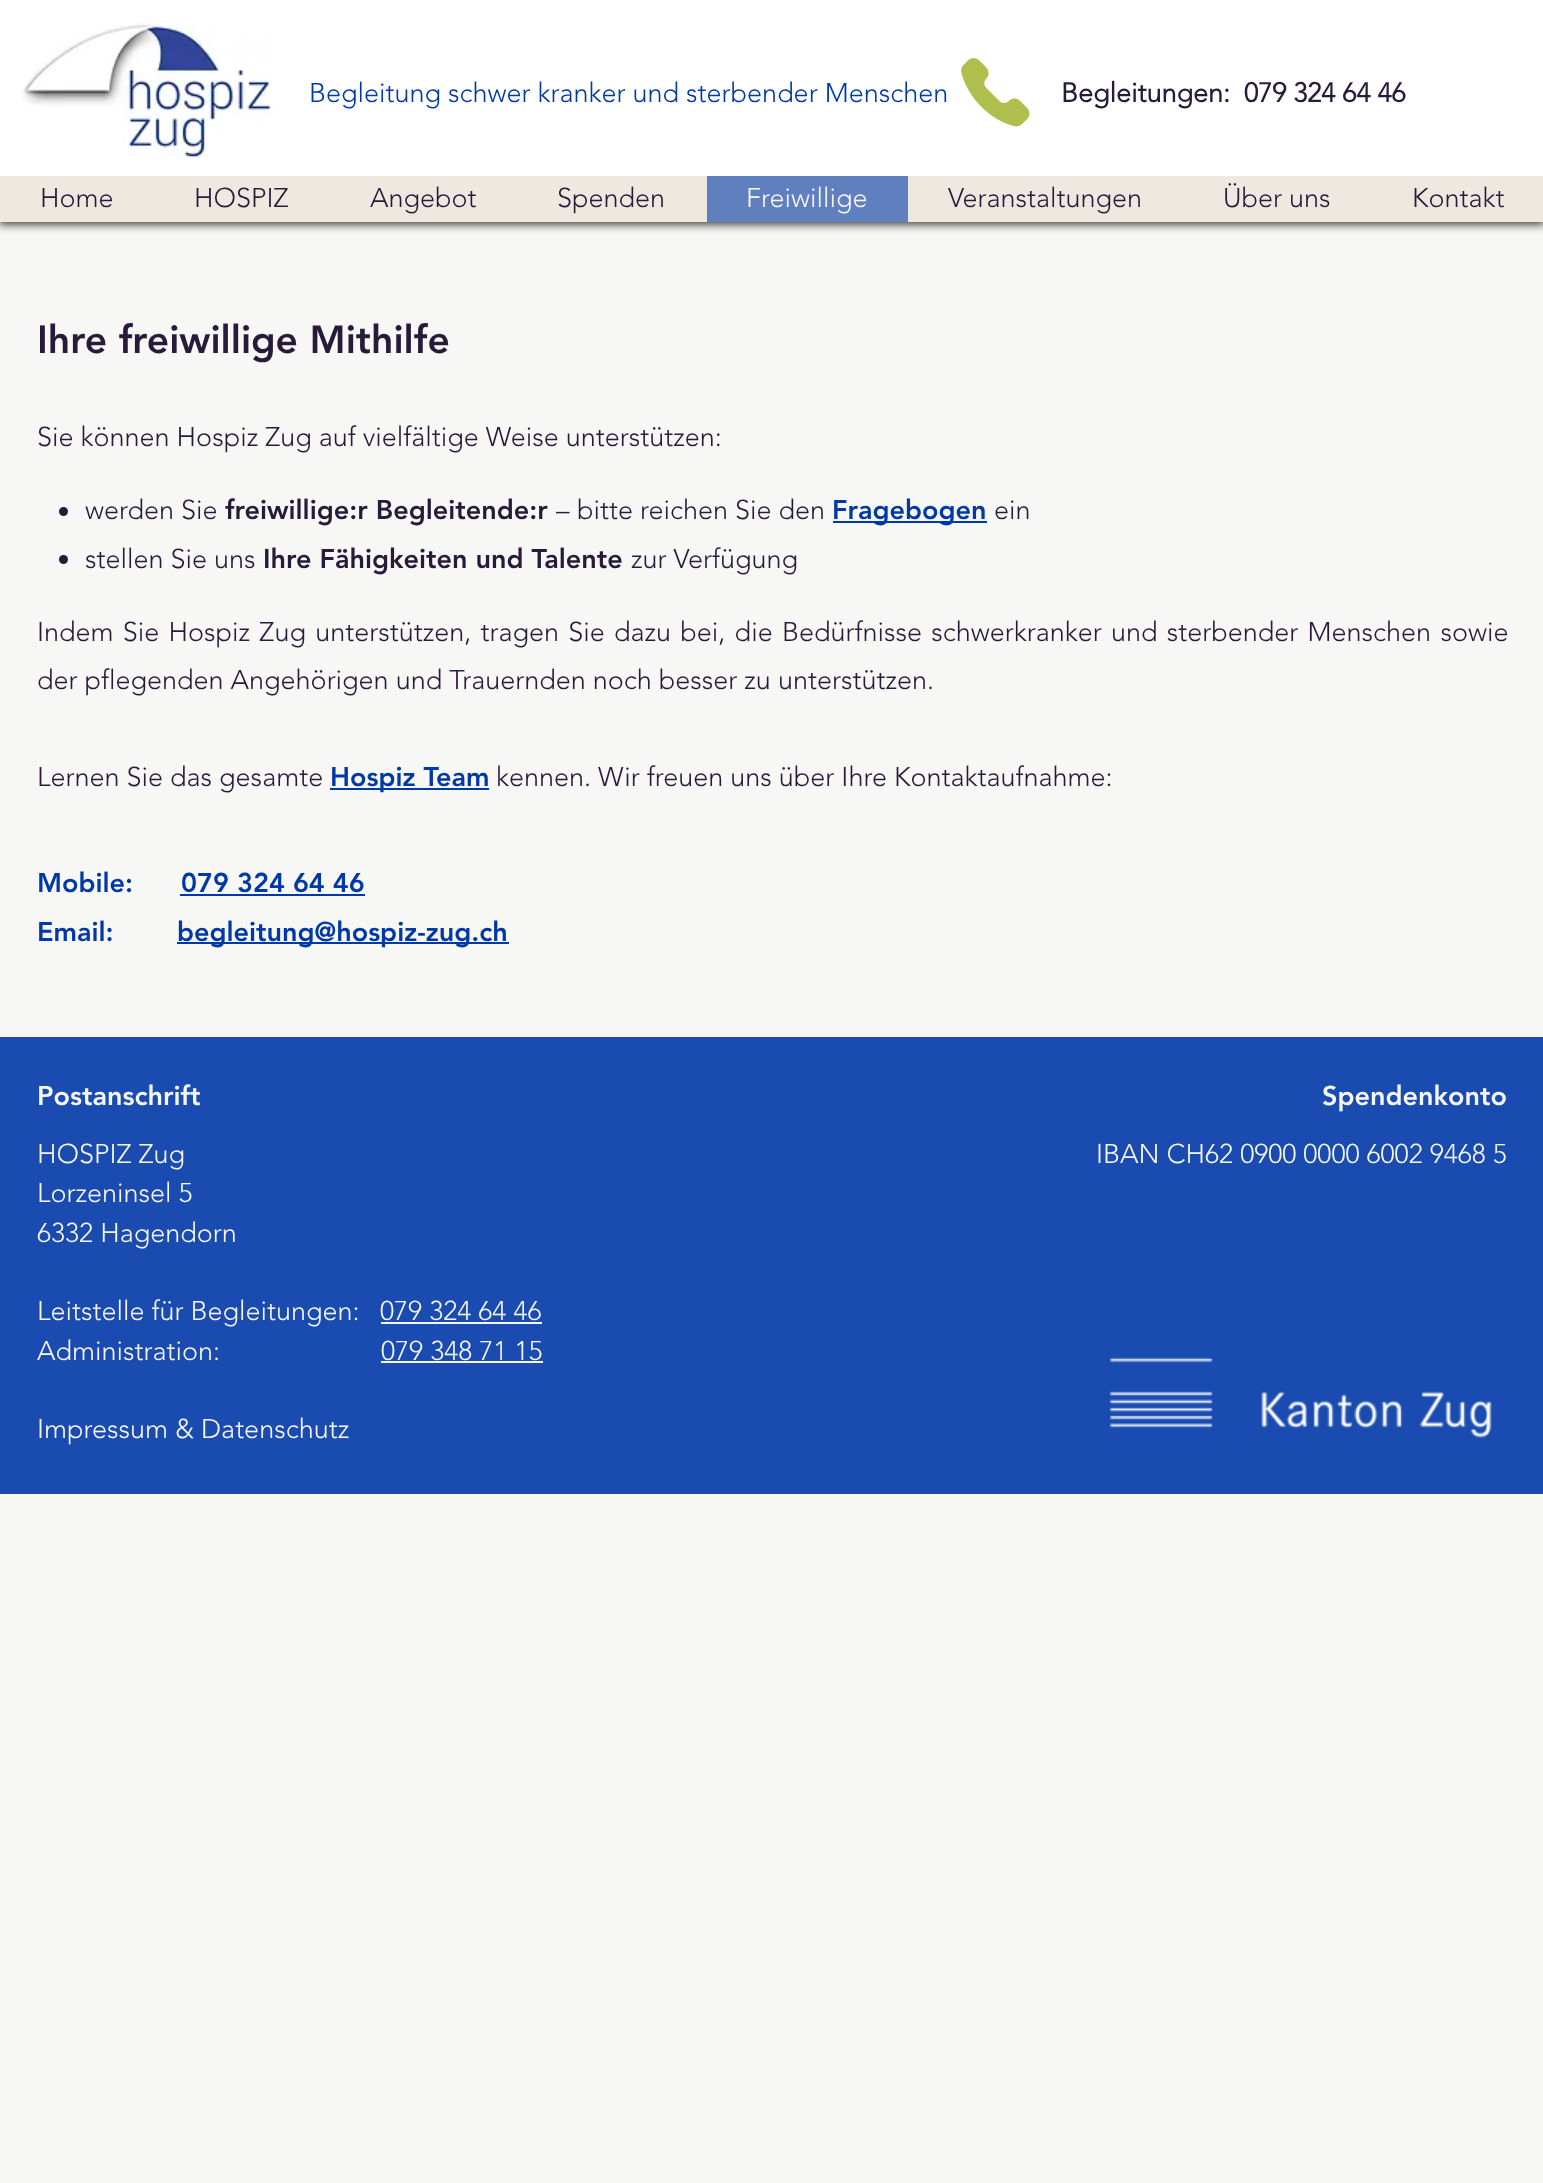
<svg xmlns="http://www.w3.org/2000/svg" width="1543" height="2183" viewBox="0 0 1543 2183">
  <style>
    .t1 { font: 300 27px 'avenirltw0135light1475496'; fill: #0038a8; }
    .t2 { font: bold 27px 'avenirltw0135light1475496'; fill: #281a39; }
    .t3 { font: 300 27px 'avenirltw0135light1475496'; fill: #281a39; }
    .t4 { font: 300 27px 'avenirltw0135light1475496'; fill: #f6f6f6; }
    .t5 { font: 900 39px 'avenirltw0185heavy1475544'; fill: #281a39; }
    .t6 { font: 900 27px 'avenirltw0185heavy1475544'; fill: #281a39; }
    .t7 { font: 900 27px 'avenirltw0185heavy1475544'; fill: #0038a8; }
    .t8 { font: 900 27px 'avenirltw0185heavy1475544'; fill: #f6f6f6; }
  </style>
  <rect width="100%" height="100%" fill="#f7f7f5"/>
  <rect x="-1" y="0" width="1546" height="225" fill="#000000b3" filter="blur(4px)"/>
  <rect x="0" y="0" width="1543" height="176" fill="#fff"/>
  <image x="22" y="23" width="251" height="136" href="images/1.png"/>
  <text x="309" y="102" class="t1">Begleitung schwer kranker und sterbender Menschen</text>
  <image x="961" y="58" width="69" height="69" href="images/2.png"/>
  <text x="1061" y="102" class="t2" xml:space="preserve">Begleitungen:  079 324 64 46</text>
  <rect x="0" y="176" width="1543" height="46" fill="#ede9e1"/>
  <text x="40" y="207" class="t3">Home</text>
  <text x="194" y="207" class="t3">HOSPIZ</text>
  <text x="370" y="207" class="t3">Angebot</text>
  <text x="557" y="207" class="t3">Spenden</text>
  <rect x="707" y="176" width="201" height="46" fill="#5f7fbf"/>
  <text x="746" y="207" class="t4">Freiwillige</text>
  <text x="948" y="207" class="t3">Veranstaltungen</text>
  <text x="1223" y="207" class="t3">Über uns</text>
  <text x="1412" y="207" class="t3">Kontakt</text>
  <text x="37" y="353" class="t5">Ihre freiwillige Mithilfe</text>
  <text x="37" y="446" class="t3">Sie können Hospiz Zug auf vielfältige Weise unterstützen:</text>
  <circle cx="63.5" cy="511.5" r="4.5" fill="#281a39"/>
  <text x="85" y="519" class="t3">werden Sie</text>
  <text x="225" y="519" class="t6">freiwillige:r Begleitende:r</text>
  <text x="556" y="519" class="t3">–</text>
  <text x="577" y="519" class="t3">bitte reichen Sie den</text>
  <rect x="833" y="521" width="154" height="2" fill="#0038a8"/>
  <text x="832" y="519" class="t7">Fragebogen</text>
  <text x="994" y="519" class="t3">ein</text>
  <circle cx="63.5" cy="559.5" r="4.5" fill="#281a39"/>
  <text x="85" y="568" class="t3">stellen Sie uns</text>
  <text x="263" y="568" class="t6">Ihre Fähigkeiten und Talente</text>
  <text x="631" y="568" class="t3">zur Verfügung</text>
  <text x="37" y="641" word-spacing="2.25" class="t3">Indem Sie Hospiz Zug unterstützen, tragen Sie dazu bei, die Bedürfnisse schwerkranker und sterbender Menschen sowie</text>
  <text x="37" y="689" class="t3">der pflegenden Angehörigen und Trauernden noch besser zu unterstützen.</text>
  <text x="37" y="786" class="t3">Lernen Sie das gesamte</text>
  <rect x="330" y="788" width="159" height="2" fill="#0038a8"/>
  <text x="330" y="786" class="t7">Hospiz Team</text>
  <text x="496" y="786" class="t3">kennen. Wir freuen uns über Ihre Kontaktaufnahme:</text>
  <text x="37" y="892" class="t7">Mobile:</text>
  <text x="181" y="892" class="t7">079 324 64 46</text>
  <rect x="180" y="894" width="185" height="2" fill="#0038a8"/>
  <text x="37" y="941" class="t7">Email:</text>
  <rect x="177" y="942" width="332" height="2" fill="#0038a8"/>
  <text x="177" y="941" class="t7">begleitung@hospiz-zug.ch</text>
  <rect x="0" y="1037" width="1543" height="457" fill="#194bb0"/>
  <text x="37" y="1105" class="t8">Postanschrift</text>
  <text x="37" y="1163" class="t4">HOSPIZ Zug</text>
  <text x="37" y="1202" class="t4">Lorzeninsel 5</text>
  <text x="37" y="1242" class="t4">6332 Hagendorn</text>
  <text x="37" y="1320" class="t4">Leitstelle für Begleitungen:</text>
  <text x="380" y="1320" class="t4">079 324 64 46</text>
  <rect x="381" y="1322" width="161" height="2" fill="#f6f6f6"/>
  <text x="37" y="1360" class="t4">Administration:</text>
  <text x="381" y="1360" class="t4">079 348 71 15</text>
  <rect x="381" y="1361" width="162" height="2" fill="#f6f6f6"/>
  <text x="37" y="1438" class="t4">Impressum &amp; Datenschutz</text>
  <text x="1322" y="1105" class="t8">Spendenkonto</text>
  <text x="1096" y="1163" class="t4">IBAN CH62 0900 0000 6002 9468 5</text>
  <image x="1109" y="1357" width="383" height="81" href="images/3.png"/>
</svg>
